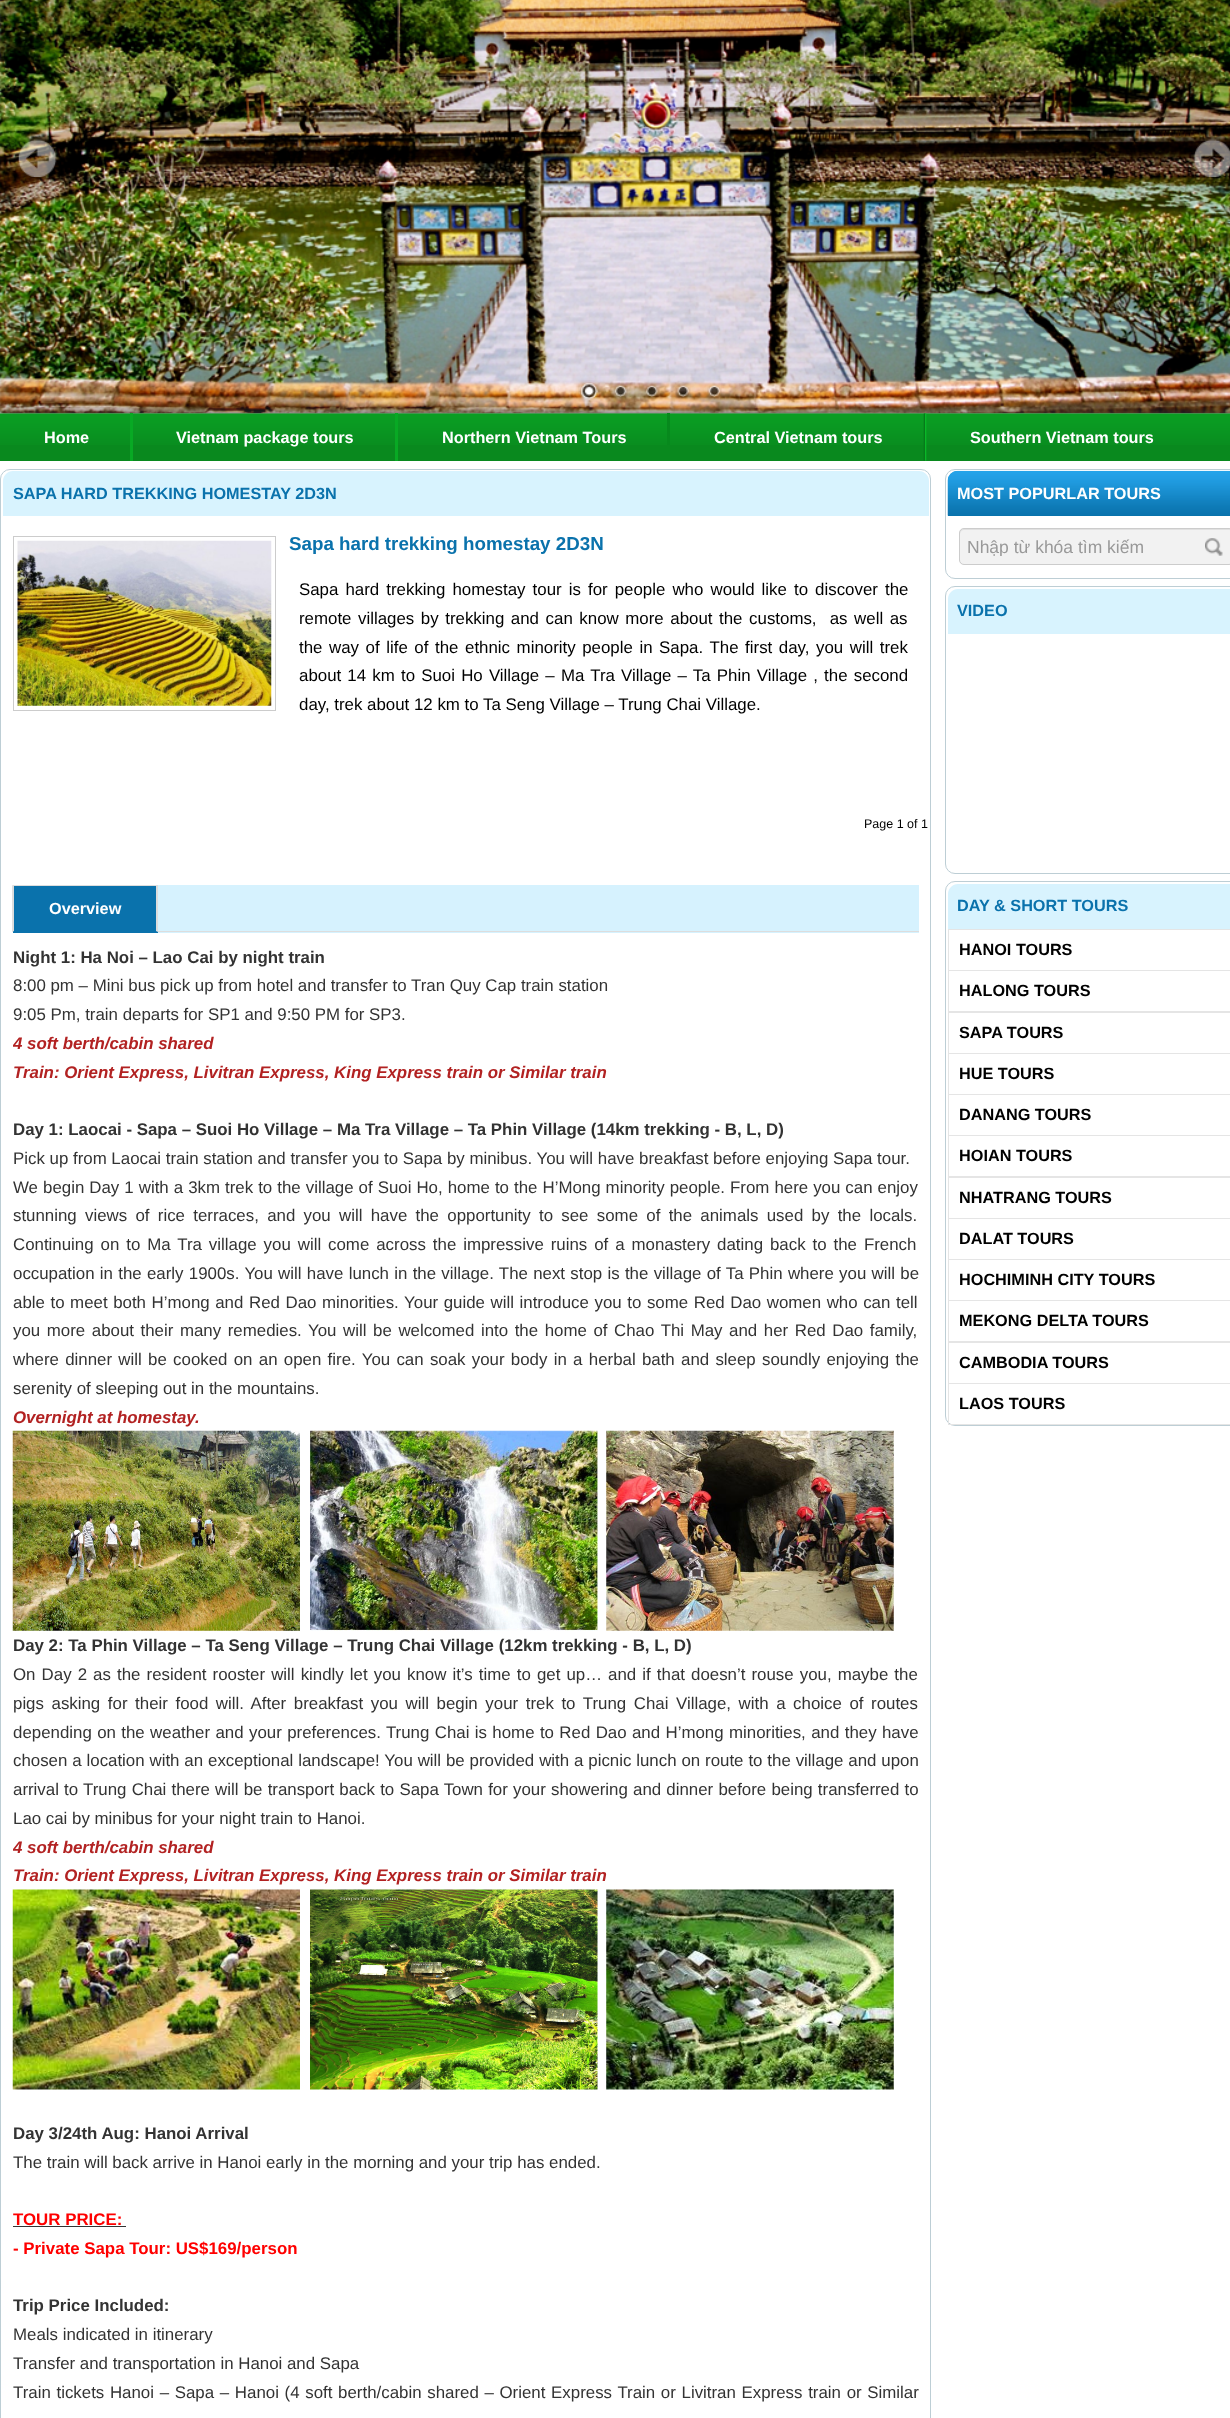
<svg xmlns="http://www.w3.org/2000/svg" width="1230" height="2418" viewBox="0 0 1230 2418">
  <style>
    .t1 { font: bold 16.25px Liberation Sans; fill: #fff; }
    .t2 { font: bold 16.25px Liberation Sans; fill: #0a72ac; }
    .t3 { font: bold 18.75px Liberation Sans; fill: #0a72ac; }
    .t4 { font: 16.88px Liberation Sans; fill: #000; }
    .t5 { font: 12.5px Liberation Sans; fill: #000; }
    .t6 { font: bold 16.88px Liberation Sans; fill: #333; }
    .t7 { font: 16.88px Liberation Sans; fill: #333; }
    .t8 { font: italic bold 16.88px Liberation Sans; fill: #b22222; }
    .t9 { font: bold 16.88px Liberation Sans; fill: #f00; }
    .t10 { font: 17.5px Liberation Sans; fill: #999; }
    .t11 { font: bold 16.25px Liberation Sans; fill: #000; }
  </style>
  <defs>
    <clipPath id="clip1"><rect x="13" y="943" width="906" height="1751"/></clipPath>
    <clipPath id="clip2"><rect x="968" y="536" width="257" height="20"/></clipPath>
  </defs>
  <rect width="100%" height="100%" fill="#fff"/>
  <image x="0" y="0" width="1230" height="414" href="images/1.png"/>
  <image x="18" y="139" width="39" height="38" href="images/2.png"/>
  <image x="1193" y="139" width="37" height="38" href="images/3.png"/>
  <rect x="-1" y="413" width="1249" height="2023" fill="#444" filter="blur(6px)"/>
  <image x="578" y="380" width="22" height="22" href="images/4.png"/>
  <image x="613" y="383" width="15" height="16" href="images/5.png"/>
  <image x="644" y="383" width="16" height="16" href="images/6.png"/>
  <image x="675" y="383" width="16" height="16" href="images/7.png"/>
  <image x="707" y="383" width="15" height="16" href="images/8.png"/>
  <rect x="0" y="461" width="1230" height="1957" fill="#fff"/>
  <rect x="0" y="445" width="1230" height="16" fill="#09891e"/>
  <image x="0" y="413" width="1230" height="32" href="images/9.png"/>
  <rect x="130" y="413" width="3" height="48" fill="#08a924"/>
  <text x="44" y="443" class="t1">Home</text>
  <rect x="395" y="413" width="3" height="48" fill="#08a924"/>
  <text x="176" y="443" class="t1">Vietnam package tours</text>
  <rect x="667" y="413" width="3" height="32" fill="#07891d"/>
  <text x="442" y="443" class="t1">Northern Vietnam Tours</text>
  <image x="923" y="413" width="4" height="48" href="images/10.png"/>
  <text x="714" y="443" class="t1">Central Vietnam tours</text>
  <text x="970" y="443" class="t1">Southern Vietnam tours</text>
  <rect x="0.5" y="469.5" width="930" height="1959" rx="9.5" fill="none" stroke="#bdced5"/>
  <path d="M13 471H919C924.5 471 929 475.5 929 481V516H3V481C3 475.5 7.5 471 13 471Z" fill="#d8f3fe"/>
  <text x="13" y="499" class="t2">SAPA HARD TREKKING HOMESTAY 2D3N</text>
  <rect x="13.5" y="536.5" width="262" height="174" fill="none" stroke="#ccc"/>
  <image x="17" y="540" width="255" height="166" href="images/11.png"/>
  <text x="289" y="550" class="t3">Sapa hard trekking homestay 2D3N</text>
  <text x="299" y="595" word-spacing="2.4" class="t4">Sapa hard trekking homestay tour is for people who would like to discover the</text>
  <text x="299" y="624" word-spacing="1.9" class="t4" xml:space="preserve">remote villages by trekking and can know more about the customs,  as well as</text>
  <text x="299" y="653" word-spacing="1.9" class="t4">the way of life of the ethnic minority people in Sapa. The first day, you will trek</text>
  <text x="299" y="681" word-spacing="1.5" class="t4">about 14 km to Suoi Ho Village – Ma Tra Village – Ta Phin Village , the second</text>
  <text x="299" y="710" class="t4">day, trek about 12 km to Ta Seng Village – Trung Chai Village.</text>
  <text x="864" y="828" class="t5">Page 1 of 1</text>
  <rect x="158" y="885" width="761" height="48" fill="#d6f2fe"/>
  <rect x="158" y="931" width="761" height="1" fill="#ddd"/>
  <rect x="13" y="886" width="145" height="47" fill="#0a72ac"/>
  <rect x="13" y="885" width="145" height="1" fill="#ddd"/>
  <path d="M158 885V932L156 931V886Z" fill="#ddd"/>
  <path d="M12 932V885L14 886V931Z" fill="#ddd"/>
  <text x="49" y="914" class="t1">Overview</text>
  <text x="13" y="963" class="t6">Night 1: Ha Noi – Lao Cai by night train</text>
  <text x="13" y="991" class="t7">8:00 pm – Mini bus pick up from hotel and transfer to Tran Quy Cap train station</text>
  <text x="13" y="1020" class="t7">9:05 Pm, train departs for SP1 and 9:50 PM for SP3.</text>
  <g clip-path="url(#clip1)">
    <text x="13" y="1049" class="t8">4 soft berth/cabin shared</text>
  </g>
  <text x="13" y="1078" class="t8">Train: Orient Express, Livitran Express, King Express train or Similar train</text>
  <text x="13" y="1135" class="t6">Day 1: Laocai - Sapa – Suoi Ho Village – Ma Tra Village – Ta Phin Village (14km trekking - B, L, D)</text>
  <text x="13" y="1164" class="t7">Pick up from Laocai train station and transfer you to Sapa by minibus. You will have breakfast before enjoying Sapa tour.</text>
  <text x="13" y="1193" word-spacing="0.35" class="t7">We begin Day 1 with a 3km trek to the village of Suoi Ho, home to the H’Mong minority people. From here you can enjoy</text>
  <text x="13" y="1221" word-spacing="3.6" class="t7">stunning views of rice terraces, and you will have the opportunity to see some of the animals used by the locals.</text>
  <text x="13" y="1250" word-spacing="2.25" class="t7">Continuing on to Ma Tra village you will come across the impressive ruins of a monastery dating back to the French</text>
  <text x="13" y="1279" word-spacing="0.6" class="t7">occupation in the early 1900s. You will have lunch in the village. The next stop is the village of Ta Phin where you will be</text>
  <text x="13" y="1308" word-spacing="0.9" class="t7">able to meet both H’mong and Red Dao minorities. Your guide will introduce you to some Red Dao women who can tell</text>
  <text x="13" y="1336" word-spacing="1.9" class="t7">you more about their many remedies. You will be welcomed into the home of Chao Thi May and her Red Dao family,</text>
  <text x="13" y="1365" word-spacing="1.6" class="t7">where dinner will be cooked on an open fire. You can soak your body in a herbal bath and sleep soundly enjoying the</text>
  <text x="13" y="1394" class="t7">serenity of sleeping out in the mountains.</text>
  <text x="13" y="1423" class="t8">Overnight at homestay.</text>
  <image x="12" y="1430" width="288" height="201" href="images/12.png"/>
  <image x="310" y="1430" width="288" height="201" href="images/13.png"/>
  <image x="606" y="1430" width="288" height="201" href="images/14.png"/>
  <text x="13" y="1651" class="t6">Day 2: Ta Phin Village – Ta Seng Village – Trung Chai Village (12km trekking - B, L, D)</text>
  <text x="13" y="1680" word-spacing="1.4" class="t7">On Day 2 as the resident rooster will kindly let you know it’s time to get up… and if that doesn’t rouse you, maybe the</text>
  <text x="13" y="1709" word-spacing="2.9" class="t7">pigs asking for their food will. After breakfast you will begin your trek to Trung Chai Village, with a choice of routes</text>
  <text x="13" y="1738" word-spacing="0.7" class="t7">depending on the weather and your preferences. Trung Chai is home to Red Dao and H’mong minorities, and they have</text>
  <text x="13" y="1766" word-spacing="0.2" class="t7">chosen a location with an exceptional landscape! You will be provided with a picnic lunch on route to the village and upon</text>
  <text x="13" y="1795" word-spacing="0.5" class="t7">arrival to Trung Chai there will be transport back to Sapa Town for your showering and dinner before being transferred to</text>
  <text x="13" y="1824" class="t7">Lao cai by minibus for your night train to Hanoi.</text>
  <g clip-path="url(#clip1)">
    <text x="13" y="1853" class="t8">4 soft berth/cabin shared</text>
  </g>
  <text x="13" y="1881" class="t8">Train: Orient Express, Livitran Express, King Express train or Similar train</text>
  <image x="12" y="1889" width="288" height="201" href="images/15.png"/>
  <image x="310" y="1889" width="288" height="201" href="images/16.png"/>
  <image x="606" y="1889" width="288" height="201" href="images/17.png"/>
  <text x="13" y="2139" class="t6">Day 3/24th Aug: Hanoi Arrival</text>
  <text x="13" y="2168" class="t7">The train will back arrive in Hanoi early in the morning and your trip has ended.</text>
  <g clip-path="url(#clip1)">
    <text x="13" y="2225" class="t9">TOUR PRICE:</text>
  </g>
  <rect x="13" y="2226" width="113" height="1" fill="#333"/>
  <text x="13" y="2254" class="t9">- Private Sapa Tour: US$169/person</text>
  <g clip-path="url(#clip1)">
    <text x="13" y="2311" class="t6">Trip Price Included:</text>
  </g>
  <text x="13" y="2340" class="t7">Meals indicated in itinerary</text>
  <text x="13" y="2369" class="t7">Transfer and transportation in Hanoi and Sapa</text>
  <text x="13" y="2398" word-spacing="1" class="t7">Train tickets Hanoi – Sapa – Hanoi (4 soft berth/cabin shared – Orient Express Train or Livitran Express train or Similar</text>
  <rect x="945.5" y="469.5" width="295" height="109" rx="9.5" fill="none" stroke="#bdced5"/>
  <path d="M958 471H1230C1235.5 471 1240 475.5 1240 481V516H948V481C948 475.5 952.5 471 958 471Z" fill="#0a73ad"/>
  <image x="947" y="470" width="283" height="46" href="images/18.png"/>
  <text x="957" y="499" class="t1">MOST POPURLAR TOURS</text>
  <rect x="959" y="528" width="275" height="37" rx="5" fill="#f2f2f2"/>
  <image x="1205" y="538" width="18" height="18" href="images/19.png"/>
  <path d="M964 530H1229C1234 530 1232 541 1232 543V563C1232 562 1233 561 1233 560V533C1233 531 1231 529 1229 529H964C962 529 960 531 960 533V534C960 532 962 530 964 530Z" fill="#e0e0e0"/>
  <rect x="959.5" y="528.5" width="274" height="36" rx="4.5" fill="none" stroke="#ccc"/>
  <g clip-path="url(#clip2)">
    <text x="967" y="553" class="t10">Nhập từ khóa tìm kiếm</text>
  </g>
  <rect x="945.5" y="586.5" width="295" height="287" rx="9.5" fill="none" stroke="#bdced5"/>
  <path d="M958 589H1230C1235.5 589 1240 593.5 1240 599V634H948V599C948 593.5 952.5 589 958 589Z" fill="#d8f3fe"/>
  <text x="957" y="616" class="t2">VIDEO</text>
  <rect x="945.5" y="881.5" width="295" height="544" rx="9.5" fill="none" stroke="#bdced5"/>
  <path d="M958 884H1230C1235.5 884 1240 888.5 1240 894V929H948V894C948 888.5 952.5 884 958 884Z" fill="#d8f3fe"/>
  <text x="957" y="911" class="t2">DAY &amp; SHORT TOURS</text>
  <rect x="948.5" y="929.5" width="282" height="41" fill="none" stroke="#e5e5e5"/>
  <text x="959" y="955" class="t11">HANOI TOURS</text>
  <rect x="948.5" y="970.5" width="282" height="42" fill="none" stroke="#e5e5e5"/>
  <text x="959" y="996" class="t11">HALONG TOURS</text>
  <rect x="948.5" y="1011.5" width="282" height="42" fill="none" stroke="#e5e5e5"/>
  <text x="959" y="1038" class="t11">SAPA TOURS</text>
  <rect x="948.5" y="1053.5" width="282" height="41" fill="none" stroke="#e5e5e5"/>
  <text x="959" y="1079" class="t11">HUE TOURS</text>
  <rect x="948.5" y="1094.5" width="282" height="41" fill="none" stroke="#e5e5e5"/>
  <text x="959" y="1120" class="t11">DANANG TOURS</text>
  <rect x="948.5" y="1135.5" width="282" height="42" fill="none" stroke="#e5e5e5"/>
  <text x="959" y="1161" class="t11">HOIAN TOURS</text>
  <rect x="948.5" y="1176.5" width="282" height="42" fill="none" stroke="#e5e5e5"/>
  <text x="959" y="1203" class="t11">NHATRANG TOURS</text>
  <rect x="948.5" y="1218.5" width="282" height="41" fill="none" stroke="#e5e5e5"/>
  <text x="959" y="1244" class="t11">DALAT TOURS</text>
  <rect x="948.5" y="1259.5" width="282" height="41" fill="none" stroke="#e5e5e5"/>
  <text x="959" y="1285" class="t11">HOCHIMINH CITY TOURS</text>
  <rect x="948.5" y="1300.5" width="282" height="42" fill="none" stroke="#e5e5e5"/>
  <text x="959" y="1326" class="t11">MEKONG DELTA TOURS</text>
  <rect x="948.5" y="1341.5" width="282" height="42" fill="none" stroke="#e5e5e5"/>
  <text x="959" y="1368" class="t11">CAMBODIA TOURS</text>
  <rect x="948.5" y="1383.5" width="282" height="41" fill="none" stroke="#e5e5e5"/>
  <text x="959" y="1409" class="t11">LAOS TOURS</text>
</svg>
